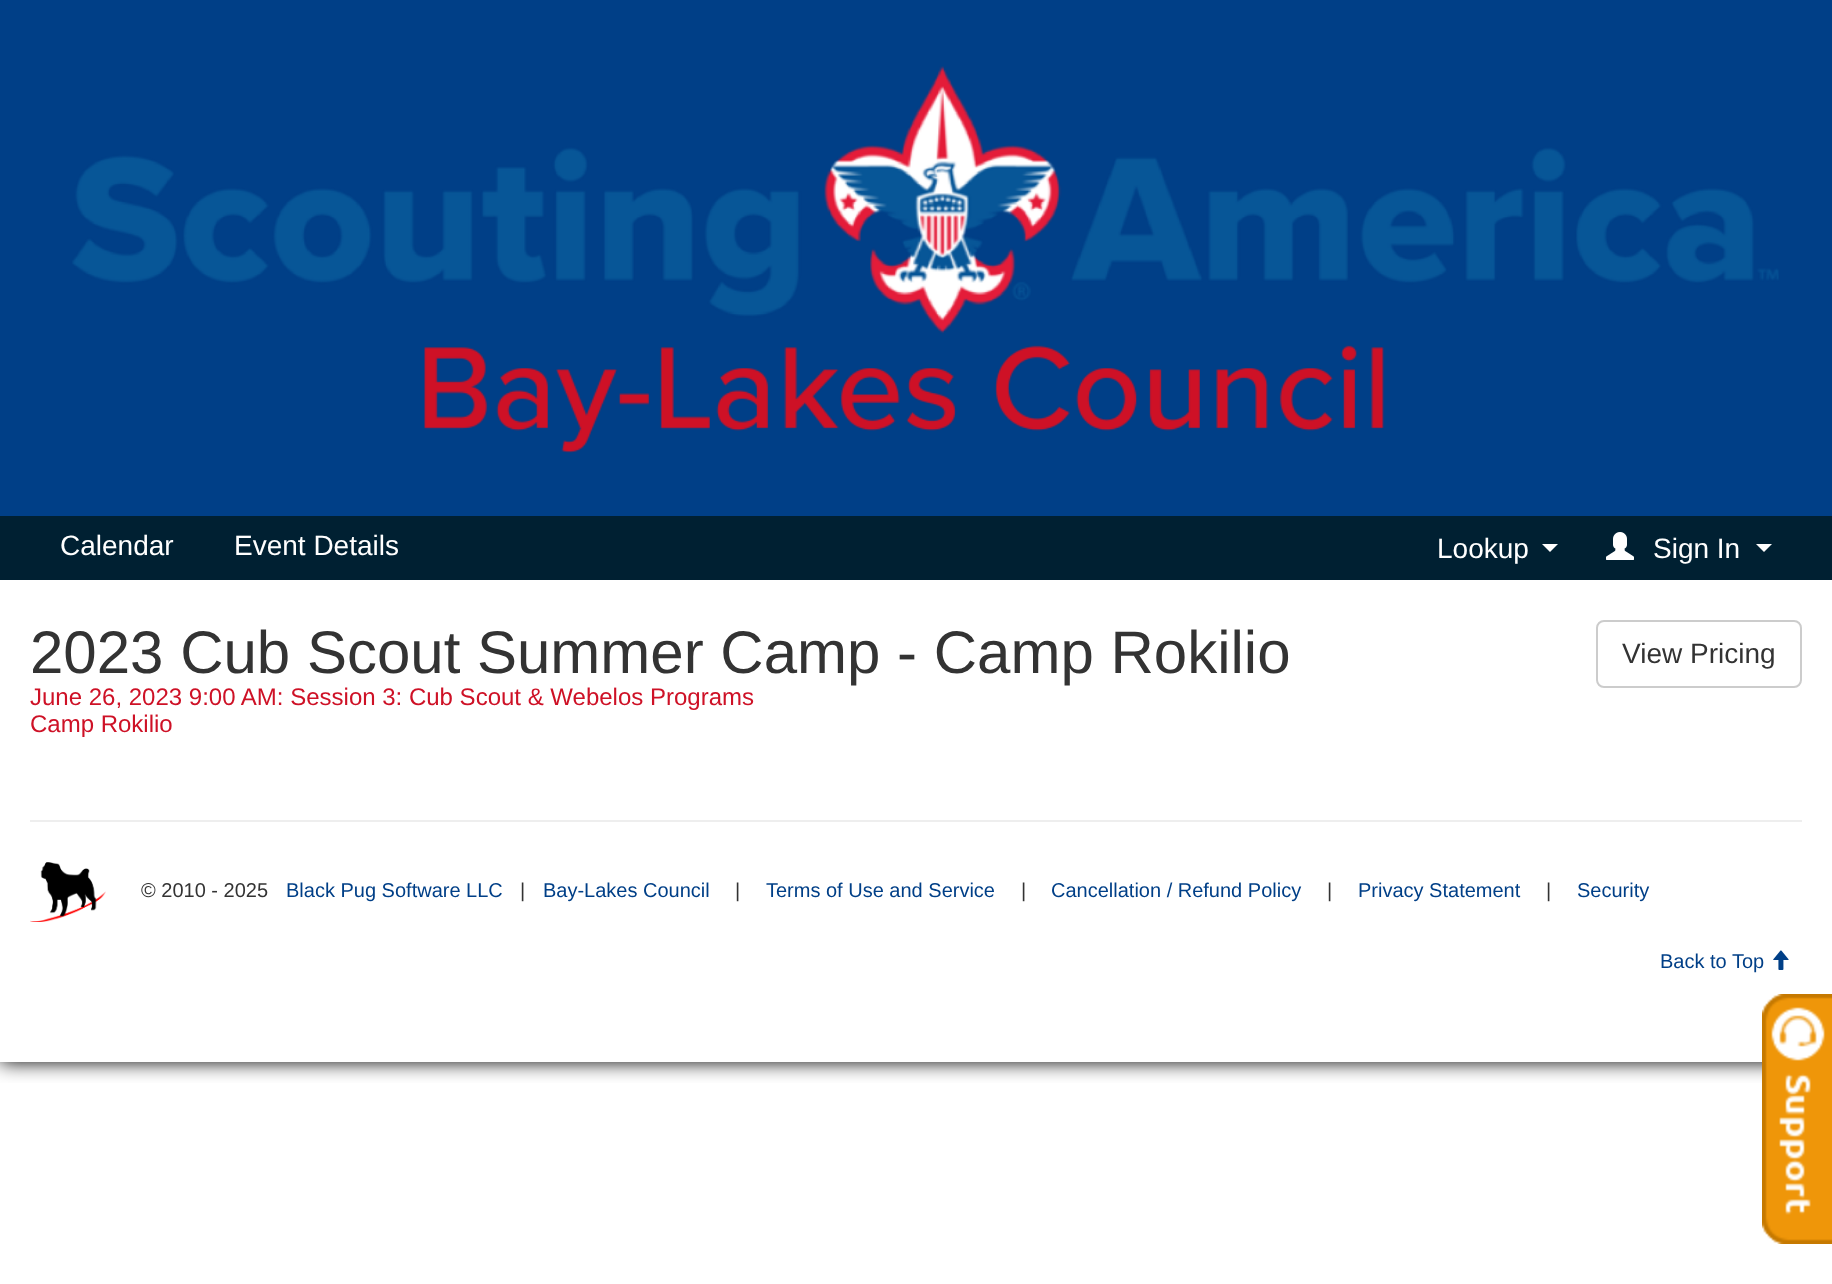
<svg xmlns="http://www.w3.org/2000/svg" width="1832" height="1284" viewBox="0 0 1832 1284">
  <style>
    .t1 { font: 28px Liberation Sans; fill: #fff; }
    .t2 { font: 60px Liberation Sans; fill: #333; }
    .t3 { font: 24px Liberation Sans; fill: #ce1126; }
    .t4 { font: 28px Liberation Sans; fill: #333; }
    .t5 { font: 20px Liberation Sans; fill: #333; }
    .t6 { font: 20px Liberation Sans; fill: #003f87; }
  </style>
  <defs>
    <clipPath id="clip1"><rect x="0" y="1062" width="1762" height="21"/></clipPath>
  </defs>
  <rect width="100%" height="100%" fill="#fff"/>
  <rect x="0" y="0" width="1832" height="516" fill="#003f87"/>
  <image x="72" y="66" width="1707" height="387" href="images/1.png"/>
  <g clip-path="url(#clip1)">
    <rect x="0" y="580" width="1832" height="482" fill="#000" filter="blur(10px)"/>
  </g>
  <rect x="0" y="516" width="1832" height="64" fill="#002032"/>
  <text x="60" y="555" class="t1">Calendar</text>
  <text x="234" y="555" class="t1">Event Details</text>
  <text x="1437" y="558" class="t1">Lookup</text>
  <path d="M1542 544H1558L1550 552Z" fill="#fff"/>
  <image x="1606" y="532" width="28" height="28" href="images/2.png"/>
  <text x="1653" y="558" class="t1">Sign In</text>
  <path d="M1756 544H1772L1764 552Z" fill="#fff"/>
  <text x="30" y="673" class="t2">2023 Cub Scout Summer Camp - Camp Rokilio</text>
  <text x="30" y="705" class="t3">June 26, 2023 9:00 AM: Session 3: Cub Scout &amp; Webelos Programs</text>
  <text x="30" y="732" class="t3">Camp Rokilio</text>
  <rect x="1597" y="621" width="204" height="66" rx="7" fill="none" stroke="#ccc" stroke-width="2"/>
  <text x="1622" y="663" class="t4">View Pricing</text>
  <rect x="30" y="820" width="1772" height="2" fill="#eee"/>
  <image x="30" y="862" width="76" height="60" href="images/3.png"/>
  <text x="141" y="897" class="t5">© 2010 - 2025</text>
  <text x="286" y="897" class="t6">Black Pug Software LLC</text>
  <text x="520" y="897" class="t5">|</text>
  <text x="543" y="897" class="t6">Bay-Lakes Council</text>
  <text x="735" y="897" class="t5">|</text>
  <text x="766" y="897" class="t6">Terms of Use and Service</text>
  <text x="1021" y="897" class="t5">|</text>
  <text x="1051" y="897" class="t6">Cancellation / Refund Policy</text>
  <text x="1327" y="897" class="t5">|</text>
  <text x="1358" y="897" class="t6">Privacy Statement</text>
  <text x="1546" y="897" class="t5">|</text>
  <text x="1577" y="897" class="t6">Security</text>
  <text x="1660" y="968" class="t6">Back to Top</text>
  <image x="1773" y="950" width="16" height="20" href="images/4.png"/>
  <image x="1762" y="994" width="70" height="250" href="images/5.png"/>
</svg>
